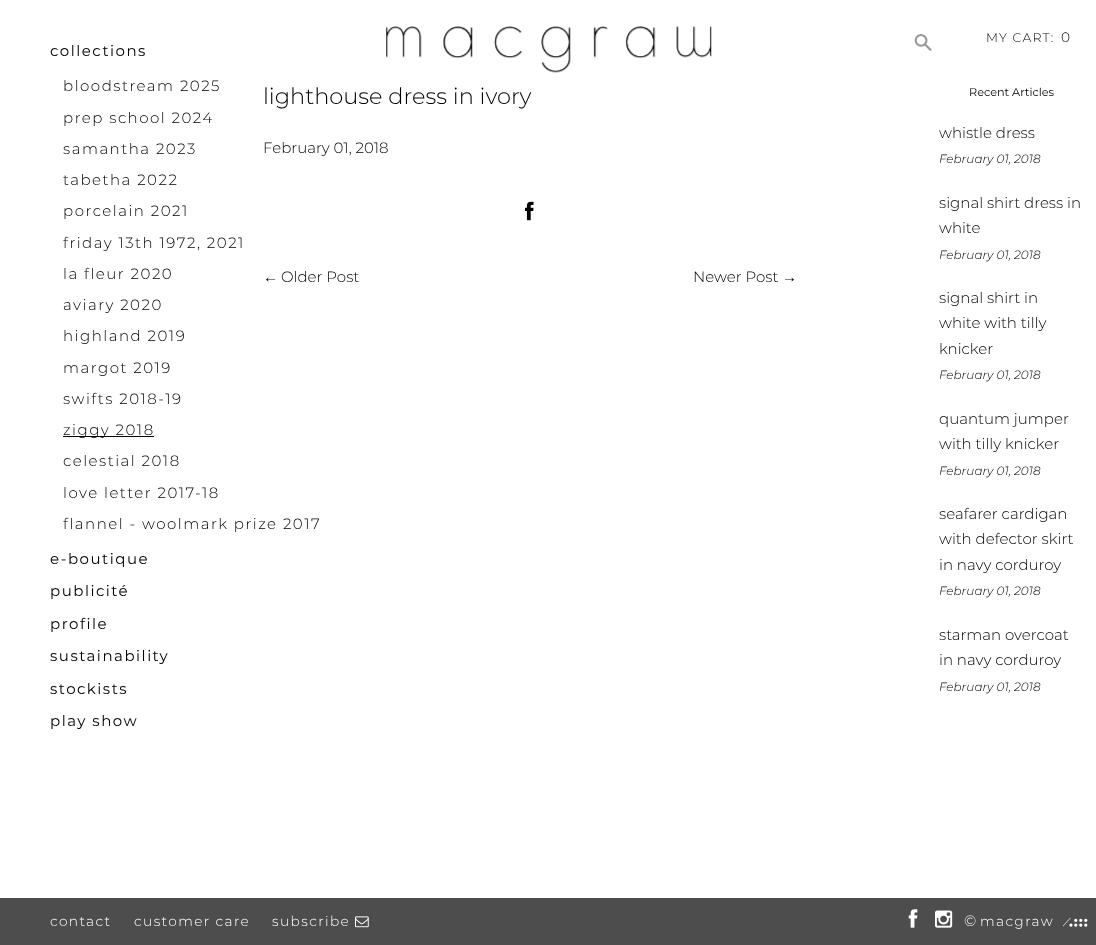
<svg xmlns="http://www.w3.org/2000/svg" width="1096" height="945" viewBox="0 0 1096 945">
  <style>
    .t1 { font: 300 12.5px Montserrat; letter-spacing: 1.25px; fill: #000; }
    .t2 { font: 300 13.75px Montserrat; letter-spacing: 1.25px; fill: #000; }
    .t3 { font: 15px Montserrat; letter-spacing: 1.5px; fill: #000; }
    .t4 { font: 300 15px Montserrat; letter-spacing: 1.5px; fill: #000; }
    .t5 { font: 300 22.5px Montserrat; fill: #000; }
    .t6 { font: 300 15px Montserrat; fill: #000; }
    .t7 { font: 15px Liberation Sans; fill: #000; }
    .t8 { font: 11.25px Montserrat; fill: #000; }
    .t9 { font: italic 300 12px Montserrat; fill: #000; }
    .t10 { font: 300 13.75px Montserrat; letter-spacing: 1.4px; fill: #fff; }
    .t11 { font: 300 15px Montserrat; fill: #fff; }
    .t12 { font: 20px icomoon; letter-spacing: 2px; fill: #fff; }
  </style>
  <rect width="100%" height="100%" fill="#fff"/>
  <image x="386" y="26" width="326" height="47" href="images/1.png"/>
  <image x="914" y="34" width="18" height="17" href="images/2.png"/>
  <text x="986" y="42" class="t1">MY CART:</text>
  <text x="1061" y="42" class="t2">0</text>
  <text x="50" y="56" class="t3">collections</text>
  <text x="63" y="91" class="t4">bloodstream 2025</text>
  <text x="63" y="123" class="t4">prep school 2024</text>
  <text x="63" y="154" class="t4">samantha 2023</text>
  <text x="63" y="185" class="t4">tabetha 2022</text>
  <text x="63" y="216" class="t4">porcelain 2021</text>
  <text x="63" y="248" class="t4">friday 13th 1972, 2021</text>
  <text x="63" y="279" class="t4">la fleur 2020</text>
  <text x="63" y="310" class="t4">aviary 2020</text>
  <text x="63" y="341" class="t4">highland 2019</text>
  <text x="63" y="373" class="t4">margot 2019</text>
  <text x="63" y="404" class="t4">swifts 2018-19</text>
  <rect x="63" y="436" width="91" height="1" fill="#000"/>
  <text x="63" y="435" class="t4">ziggy 2018</text>
  <text x="63" y="466" class="t4">celestial 2018</text>
  <text x="63" y="498" class="t4">love letter 2017-18</text>
  <text x="63" y="529" class="t4">flannel - woolmark prize 2017</text>
  <text x="50" y="564" class="t3">e-boutique</text>
  <text x="50" y="596" class="t3">publicité</text>
  <text x="50" y="629" class="t3">profile</text>
  <text x="50" y="661" class="t3">sustainability</text>
  <text x="50" y="694" class="t3">stockists</text>
  <text x="50" y="726" class="t3">play show</text>
  <text x="263" y="104" class="t5">lighthouse dress in ivory</text>
  <text x="263" y="153" class="t6">February 01, 2018</text>
  <image x="525" y="201" width="9" height="20" href="images/3.png"/>
  <text x="263" y="282" class="t7">←</text>
  <text x="281" y="282" class="t6">Older Post</text>
  <text x="693" y="282" class="t6">Newer Post</text>
  <text x="782" y="282" class="t7">→</text>
  <text x="969" y="96" class="t8">Recent Articles</text>
  <text x="939" y="138" class="t6">whistle dress</text>
  <text x="939" y="163" class="t9">February 01, 2018</text>
  <text x="939" y="208" class="t6">signal shirt dress in</text>
  <text x="939" y="233" class="t6">white</text>
  <text x="939" y="259" class="t9">February 01, 2018</text>
  <text x="939" y="303" class="t6">signal shirt in</text>
  <text x="939" y="328" class="t6">white with tilly</text>
  <text x="939" y="354" class="t6">knicker</text>
  <text x="939" y="379" class="t9">February 01, 2018</text>
  <text x="939" y="424" class="t6">quantum jumper</text>
  <text x="939" y="449" class="t6">with tilly knicker</text>
  <text x="939" y="475" class="t9">February 01, 2018</text>
  <text x="939" y="519" class="t6">seafarer cardigan</text>
  <text x="939" y="544" class="t6">with defector skirt</text>
  <text x="939" y="570" class="t6">in navy corduroy</text>
  <text x="939" y="595" class="t9">February 01, 2018</text>
  <text x="939" y="640" class="t6">starman overcoat</text>
  <text x="939" y="665" class="t6">in navy corduroy</text>
  <text x="939" y="691" class="t9">February 01, 2018</text>
  <rect x="0" y="898" width="1096" height="47" fill="#4d4d4d"/>
  <text x="50" y="926" class="t10">contact</text>
  <text x="134" y="926" class="t10">customer care</text>
  <text x="272" y="926" class="t10">subscribe</text>
  <image x="355" y="916" width="14" height="12" href="images/4.png"/>
  <image x="908" y="909" width="10" height="19" href="images/5.png"/>
  <image x="935" y="910" width="18" height="18" href="images/6.png"/>
  <text x="964" y="926" class="t11">©</text>
  <text x="980" y="926" class="t10">macgraw</text>
  <text x="1058" y="931" class="t12">🎂</text>
</svg>
